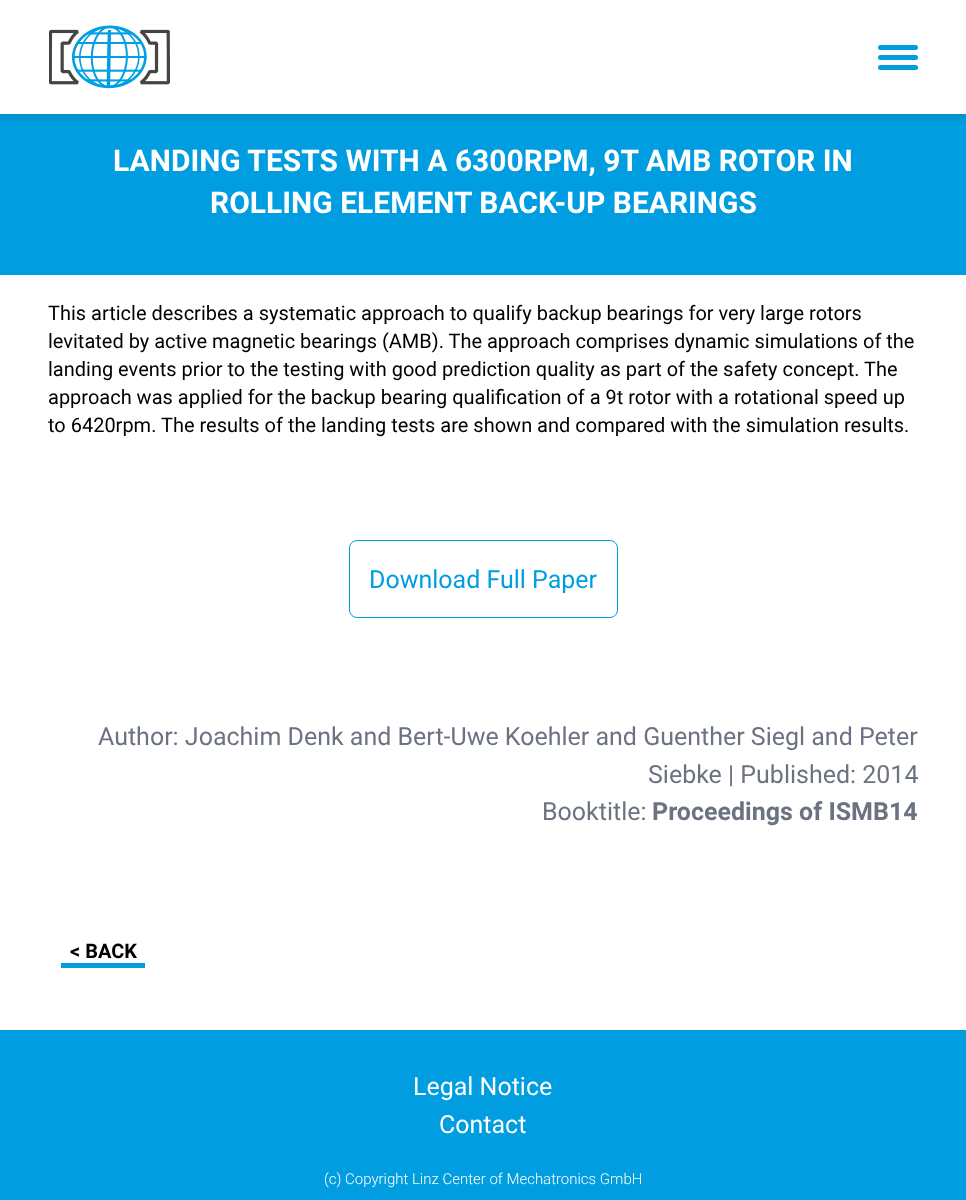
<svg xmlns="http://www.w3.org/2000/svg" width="966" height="1200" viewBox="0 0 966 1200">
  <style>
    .t1 { font: bold 30px Roboto; fill: #fff; }
    .t2 { font: 20px Roboto; fill: #000; }
    .t3 { font: 25px Roboto; fill: #009de0; }
    .t4 { font: 25px Roboto; fill: #6b7280; }
    .t5 { font: bold 25px Roboto; fill: #6b7280; }
    .t6 { font: bold 20px Roboto; fill: #000; }
    .t7 { font: 25px Roboto; fill: #fff; }
    .t8 { font: 300 15px Roboto; fill: #fff; }
  </style>
  <rect width="100%" height="100%" fill="#fff"/>
  <rect x="0" y="114" width="966" height="161" fill="#009de0"/>
  <rect x="0" y="5" width="966" height="114" fill="#00000014" filter="blur(2.5px)"/>
  <rect x="0" y="2" width="966" height="112" fill="#fff"/>
  <image x="49" y="25" width="121" height="64" href="images/1.png"/>
  <rect x="878" y="55" width="40" height="5" rx="2.5" fill="#009de0"/>
  <rect x="878" y="45" width="40" height="5" rx="2.5" fill="#009de0"/>
  <rect x="878" y="65" width="40" height="5" rx="2.5" fill="#009de0"/>
  <text x="113" y="171" class="t1">LANDING TESTS WITH A 6300RPM, 9T AMB ROTOR IN</text>
  <text x="210" y="213" class="t1">ROLLING ELEMENT BACK-UP BEARINGS</text>
  <text x="48" y="320" class="t2">This article describes a systematic approach to qualify backup bearings for very large rotors</text>
  <text x="48" y="348" class="t2">levitated by active magnetic bearings (AMB). The approach comprises dynamic simulations of the</text>
  <text x="48" y="376" class="t2">landing events prior to the testing with good prediction quality as part of the safety concept. The</text>
  <text x="48" y="404" class="t2">approach was applied for the backup bearing qualification of a 9t rotor with a rotational speed up</text>
  <text x="48" y="432" class="t2">to 6420rpm. The results of the landing tests are shown and compared with the simulation results.</text>
  <rect x="349.5" y="540.5" width="268" height="77" rx="7.5" fill="none" stroke="#009de0"/>
  <text x="369" y="588" class="t3">Download Full Paper</text>
  <text x="98" y="745" class="t4">Author: Joachim Denk and Bert-Uwe Koehler and Guenther Siegl and Peter</text>
  <text x="648" y="783" class="t4">Siebke | Published: 2014</text>
  <text x="542" y="820" class="t4">Booktitle:</text>
  <text x="652" y="820" class="t5">Proceedings of ISMB14</text>
  <text x="70" y="958" class="t6">&lt; BACK</text>
  <rect x="61" y="963" width="84" height="5" fill="#009de0"/>
  <rect x="0" y="1030" width="966" height="170" fill="#009de0"/>
  <text x="413" y="1095" class="t7">Legal Notice</text>
  <text x="439" y="1133" class="t7">Contact</text>
  <text x="324" y="1184" class="t8">(c) Copyright Linz Center of Mechatronics GmbH</text>
</svg>
